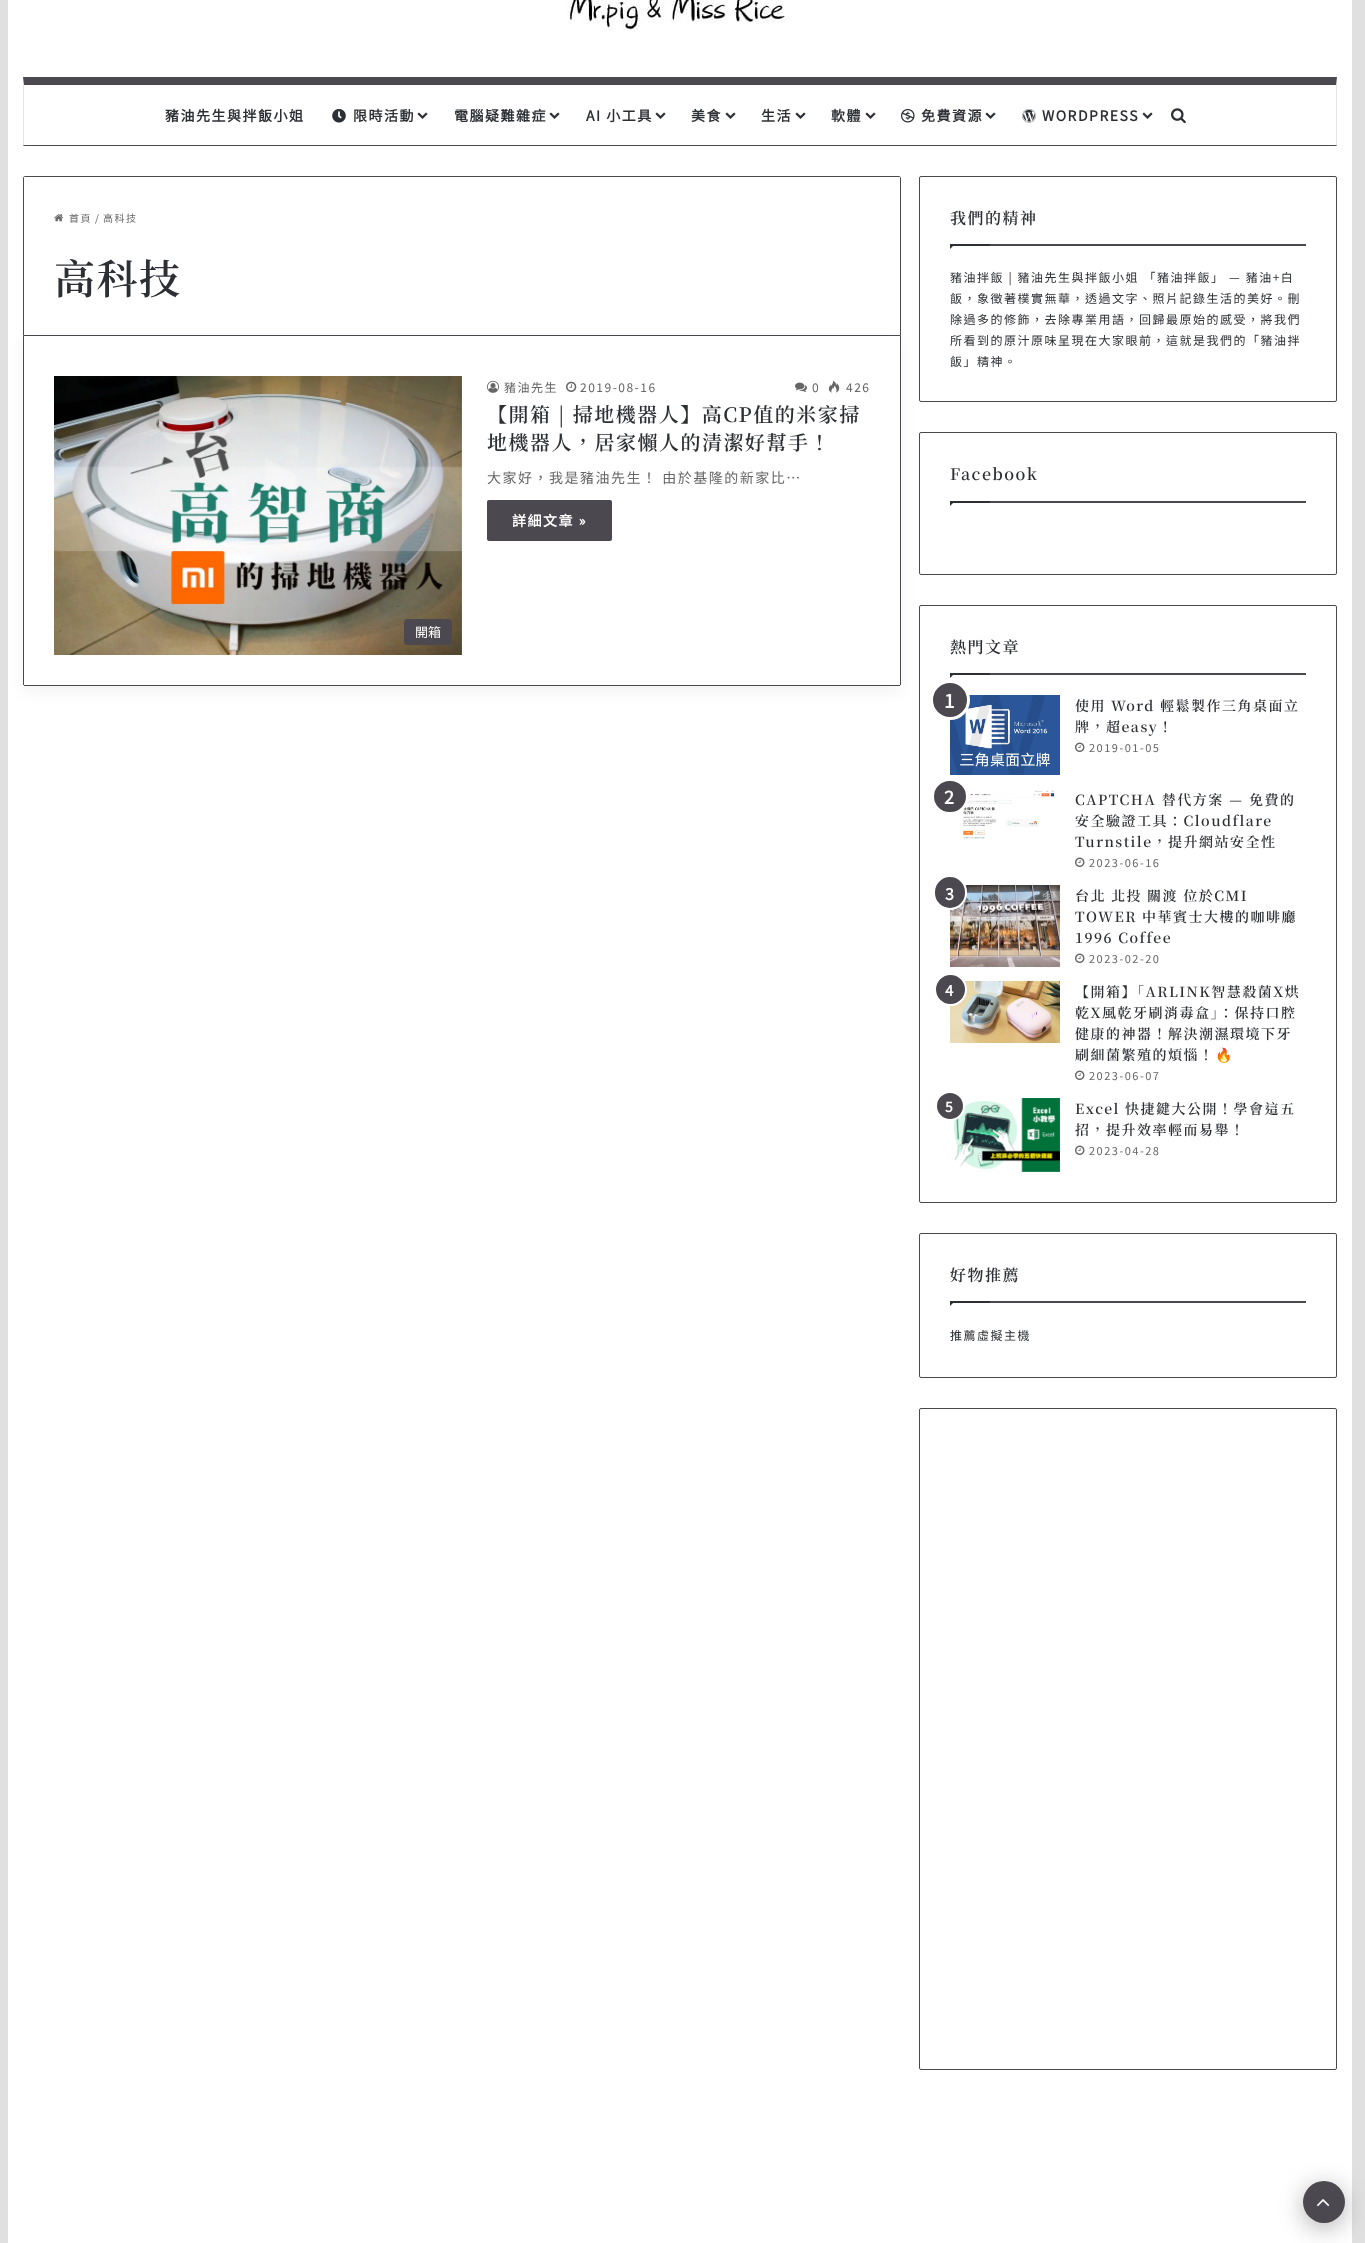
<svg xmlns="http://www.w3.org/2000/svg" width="1365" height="2243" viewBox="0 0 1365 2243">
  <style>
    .t1 { font: bold 14px Noto Sans TC; letter-spacing: 1.5px; fill: #2c2f34; }
    .t2 { font: 100 10px Noto Sans TC; letter-spacing: 1.5px; fill: #666; }
    .t3 { font: 600 41px Noto Serif TC; letter-spacing: 1.5px; fill: #2c2f34; }
    .t4 { font: 100 12px Noto Sans TC; letter-spacing: 1.5px; fill: #666; }
    .t5 { font: 600 20px Noto Serif TC; letter-spacing: 1.5px; fill: #2c2f34; }
    .t6 { font: 100 14px Noto Sans TC; letter-spacing: 1.5px; fill: #666; }
    .t7 { font: bold 14px Noto Sans TC; letter-spacing: 1.5px; fill: #fff; }
    .t8 { font: 100 13px Noto Sans TC; fill: #fff; }
    .t9 { font: 600 16px Noto Serif TC; letter-spacing: 1.5px; fill: #2c2f34; }
    .t10 { font: 100 12px Noto Sans TC; letter-spacing: 1.5px; fill: #2c2f34; }
    .t11 { font: bold 19px Noto Sans TC; letter-spacing: 2px; fill: #fff; }
    .t12 { font: 600 14px Noto Serif TC; letter-spacing: 1.5px; fill: #2c2f34; }
    .t13 { font: 100 11px Noto Sans TC; letter-spacing: 1.5px; fill: #666; }
    .t14 { font: bold 18px Noto Sans TC; letter-spacing: 2px; fill: #fff; }
    .t15 { font: bold 16px Noto Sans TC; letter-spacing: 2px; fill: #fff; }
    .t16 { font: bold 15px Noto Sans TC; letter-spacing: 2px; fill: #fff; }
    .t17 { font: bold 14px Noto Color Emoji; letter-spacing: 1.5px; fill: #2c2f34; }
  </style>
  <rect width="100%" height="100%" fill="#e0e0e0"/>
  <rect x="8" y="0" width="1344" height="2243" fill="#fff"/>
  <image x="567" y="0" width="224" height="31" href="images/1.png"/>
  <path d="M23 77H1337L1336 85H24Z" fill="#4c484f"/>
  <path d="M1337 77V146L1336 145V85Z" fill="#0000001a"/>
  <path d="M1337 146H23L24 145H1336Z" fill="#4c484f"/>
  <path d="M23 146V77L24 85V145Z" fill="#0000001a"/>
  <text x="165" y="121" class="t1">豬油先生與拌飯小姐</text>
  <image x="332" y="109" width="14" height="14" href="images/2.png"/>
  <text x="353" y="121" class="t1">限時活動</text>
  <image x="417" y="112" width="11" height="7" href="images/3.png"/>
  <text x="454" y="121" class="t1">電腦疑難雜症</text>
  <image x="549" y="112" width="11" height="7" href="images/3.png"/>
  <text x="586" y="121" class="t1">AI 小工具</text>
  <image x="655" y="112" width="11" height="7" href="images/3.png"/>
  <text x="691" y="121" class="t1">美食</text>
  <image x="725" y="112" width="11" height="7" href="images/3.png"/>
  <text x="761" y="121" class="t1">生活</text>
  <image x="795" y="112" width="11" height="7" href="images/3.png"/>
  <text x="831" y="121" class="t1">軟體</text>
  <image x="865" y="112" width="11" height="7" href="images/3.png"/>
  <image x="901" y="109" width="14" height="14" href="images/4.png"/>
  <text x="921" y="121" class="t1">免費資源</text>
  <image x="985" y="112" width="11" height="7" href="images/3.png"/>
  <image x="1022" y="109" width="14" height="14" href="images/5.png"/>
  <text x="1042" y="121" class="t1">WORDPRESS</text>
  <image x="1142" y="112" width="11" height="7" href="images/3.png"/>
  <image x="1171" y="108" width="15" height="16" href="images/6.png"/>
  <path d="M25 176.5H899C900 176.5 900.5 177 900.5 178V335.5H23.5V178C23.5 177 24 176.5 25 176.5Z" fill="none" stroke="#4c484f"/>
  <image x="54" y="214" width="10" height="8" href="images/7.png"/>
  <text x="69" y="222" class="t2">首頁</text>
  <text x="95" y="222" class="t2">/</text>
  <text x="103" y="222" class="t2">高科技</text>
  <text x="54" y="294" class="t3">高科技</text>
  <rect x="23" y="341" width="878" height="350" rx="2" fill="#0000000d" filter="blur(7.5px)"/>
  <path d="M24 336H900V684C900 684.5 899.5 685 899 685H25C24.5 685 24 684.5 24 684Z" fill="#fff"/>
  <rect x="900" y="336" width="1" height="349" fill="#4c484f"/>
  <rect x="24" y="685" width="876" height="1" fill="#4c484f"/>
  <rect x="23" y="336" width="1" height="349" fill="#4c484f"/>
  <image x="487" y="380" width="12" height="13" href="images/8.png"/>
  <text x="504" y="392" class="t4">豬油先生</text>
  <image x="566" y="381" width="11" height="11" href="images/9.png"/>
  <text x="580" y="392" class="t4">2019-08-16</text>
  <image x="795" y="382" width="12" height="10" href="images/10.png"/>
  <text x="812" y="392" class="t4">0</text>
  <image x="828" y="380" width="12" height="13" href="images/11.png"/>
  <text x="846" y="392" class="t4">426</text>
  <text x="487" y="422" class="t5">【開箱 | 掃地機器人】高CP值的米家掃</text>
  <text x="487" y="450" class="t5">地機器人，居家懶人的清潔好幫手！</text>
  <text x="487" y="483" class="t6">大家好，我是豬油先生！ 由於基隆的新家比…</text>
  <rect x="487" y="500" width="125" height="41" rx="2" fill="#4c484f"/>
  <text x="512" y="526" class="t7">詳細文章 »</text>
  <image x="54" y="376" width="408" height="279" href="images/12.png"/>
  <rect x="404" y="619" width="48" height="26" rx="4" fill="#4c484f"/>
  <text x="415" y="637" class="t8">開箱</text>
  <rect x="919.5" y="176.5" width="417" height="225" rx="1.5" fill="none" stroke="#4c484f"/>
  <rect x="990" y="244" width="316" height="2" fill="#4c484f"/>
  <text x="950" y="224" class="t9">我們的精神</text>
  <path d="M950 244H955L950 249Z" fill="#2c2f34"/>
  <rect x="950" y="244" width="40" height="2" fill="#2c2f34"/>
  <text x="950" y="282" word-spacing="0.25" class="t10">豬油拌飯 | 豬油先生與拌飯小姐 「豬油拌飯」 — 豬油+白</text>
  <text x="950" y="303" class="t10">飯，象徵著樸實無華，透過文字、照片記錄生活的美好。刪</text>
  <text x="950" y="324" class="t10">除過多的修飾，去除專業用語，回歸最原始的感受，將我們</text>
  <text x="950" y="345" class="t10">所看到的原汁原味呈現在大家眼前，這就是我們的「豬油拌</text>
  <text x="950" y="366" class="t10">飯」精神。</text>
  <rect x="919.5" y="432.5" width="417" height="142" rx="1.5" fill="none" stroke="#4c484f"/>
  <rect x="990" y="501" width="316" height="2" fill="#4c484f"/>
  <text x="950" y="480" class="t9">Facebook</text>
  <path d="M950 501H955L950 506Z" fill="#2c2f34"/>
  <rect x="950" y="501" width="40" height="2" fill="#2c2f34"/>
  <rect x="919.5" y="605.5" width="417" height="597" rx="1.5" fill="none" stroke="#4c484f"/>
  <rect x="990" y="673" width="316" height="2" fill="#4c484f"/>
  <text x="950" y="653" class="t9">熱門文章</text>
  <path d="M950 673H955L950 678Z" fill="#2c2f34"/>
  <rect x="950" y="673" width="40" height="2" fill="#2c2f34"/>
  <image x="950" y="695" width="110" height="80" href="images/13.png"/>
  <circle cx="950" cy="700" r="18.5" fill="#4c484f" stroke="#fff" stroke-width="3"/>
  <text x="944" y="708" class="t11">1</text>
  <text x="1075" y="711" class="t12">使用 Word 輕鬆製作三角桌面立</text>
  <text x="1075" y="732" class="t12">牌，超easy！</text>
  <image x="1075" y="742" width="10" height="10" href="images/14.png"/>
  <text x="1089" y="752" class="t13">2019-01-05</text>
  <image x="955" y="789" width="100" height="50" href="images/15.png"/>
  <rect x="932.5" y="779.5" width="35" height="34" rx="17" fill="#4c484f" stroke="#fff" stroke-width="3"/>
  <text x="944" y="804" class="t14">2</text>
  <text x="1075" y="805" word-spacing="0.5" class="t12">CAPTCHA 替代方案 — 免費的</text>
  <text x="1075" y="826" class="t12">安全驗證工具：Cloudflare</text>
  <text x="1075" y="847" class="t12">Turnstile，提升網站安全性</text>
  <image x="1075" y="857" width="10" height="10" href="images/14.png"/>
  <text x="1089" y="867" class="t13">2023-06-16</text>
  <image x="950" y="885" width="110" height="82" href="images/16.png"/>
  <rect x="934" y="876" width="32" height="33" rx="16" fill="#4c484f" stroke="#fff" stroke-width="2"/>
  <text x="945" y="900" class="t15">3</text>
  <text x="1075" y="901" class="t12">台北 北投 關渡 位於CMI</text>
  <text x="1075" y="922" class="t12">TOWER 中華賓士大樓的咖啡廳</text>
  <text x="1075" y="943" class="t12">1996 Coffee</text>
  <image x="1075" y="953" width="10" height="10" href="images/14.png"/>
  <text x="1089" y="963" class="t13">2023-02-20</text>
  <image x="950" y="981" width="110" height="62" href="images/17.png"/>
  <circle cx="950.5" cy="989.5" r="15.5" fill="#4c484f" stroke="#fff" stroke-width="2"/>
  <text x="945" y="996" class="t16">4</text>
  <text x="1075" y="997" class="t12">【開箱】「ARLINK智慧殺菌X烘</text>
  <text x="1075" y="1018" class="t12">乾X風乾牙刷消毒盒」：保持口腔</text>
  <text x="1075" y="1039" class="t12">健康的神器！解決潮濕環境下牙</text>
  <text x="1075" y="1060" class="t12">刷細菌繁殖的煩惱！</text>
  <text x="1215" y="1060" class="t17">🔥</text>
  <image x="1075" y="1070" width="10" height="10" href="images/14.png"/>
  <text x="1089" y="1080" class="t13">2023-06-07</text>
  <image x="953" y="1098" width="107" height="74" href="images/18.png"/>
  <circle cx="950" cy="1106" r="14" fill="#4c484f" stroke="#fff" stroke-width="2"/>
  <text x="945" y="1112" class="t7">5</text>
  <text x="1075" y="1114" class="t12">Excel 快捷鍵大公開！學會這五</text>
  <text x="1075" y="1135" class="t12">招，提升效率輕而易舉！</text>
  <image x="1075" y="1145" width="10" height="10" href="images/14.png"/>
  <text x="1089" y="1155" class="t13">2023-04-28</text>
  <rect x="919.5" y="1233.5" width="417" height="144" rx="1.5" fill="none" stroke="#4c484f"/>
  <rect x="990" y="1301" width="316" height="2" fill="#4c484f"/>
  <text x="950" y="1281" class="t9">好物推薦</text>
  <path d="M950 1301H955L950 1306Z" fill="#2c2f34"/>
  <rect x="950" y="1301" width="40" height="2" fill="#2c2f34"/>
  <text x="950" y="1340" class="t10">推薦虛擬主機</text>
  <rect x="919.5" y="1408.5" width="417" height="661" rx="1.5" fill="none" stroke="#4c484f"/>
  <rect x="1303" y="2186" width="42" height="42" rx="21" fill="#0000004d" filter="blur(12.5px)"/>
  <circle cx="1324" cy="2202" r="21" fill="#4c484f"/>
  <image x="1317" y="2199" width="13" height="8" href="images/19.png"/>
</svg>
